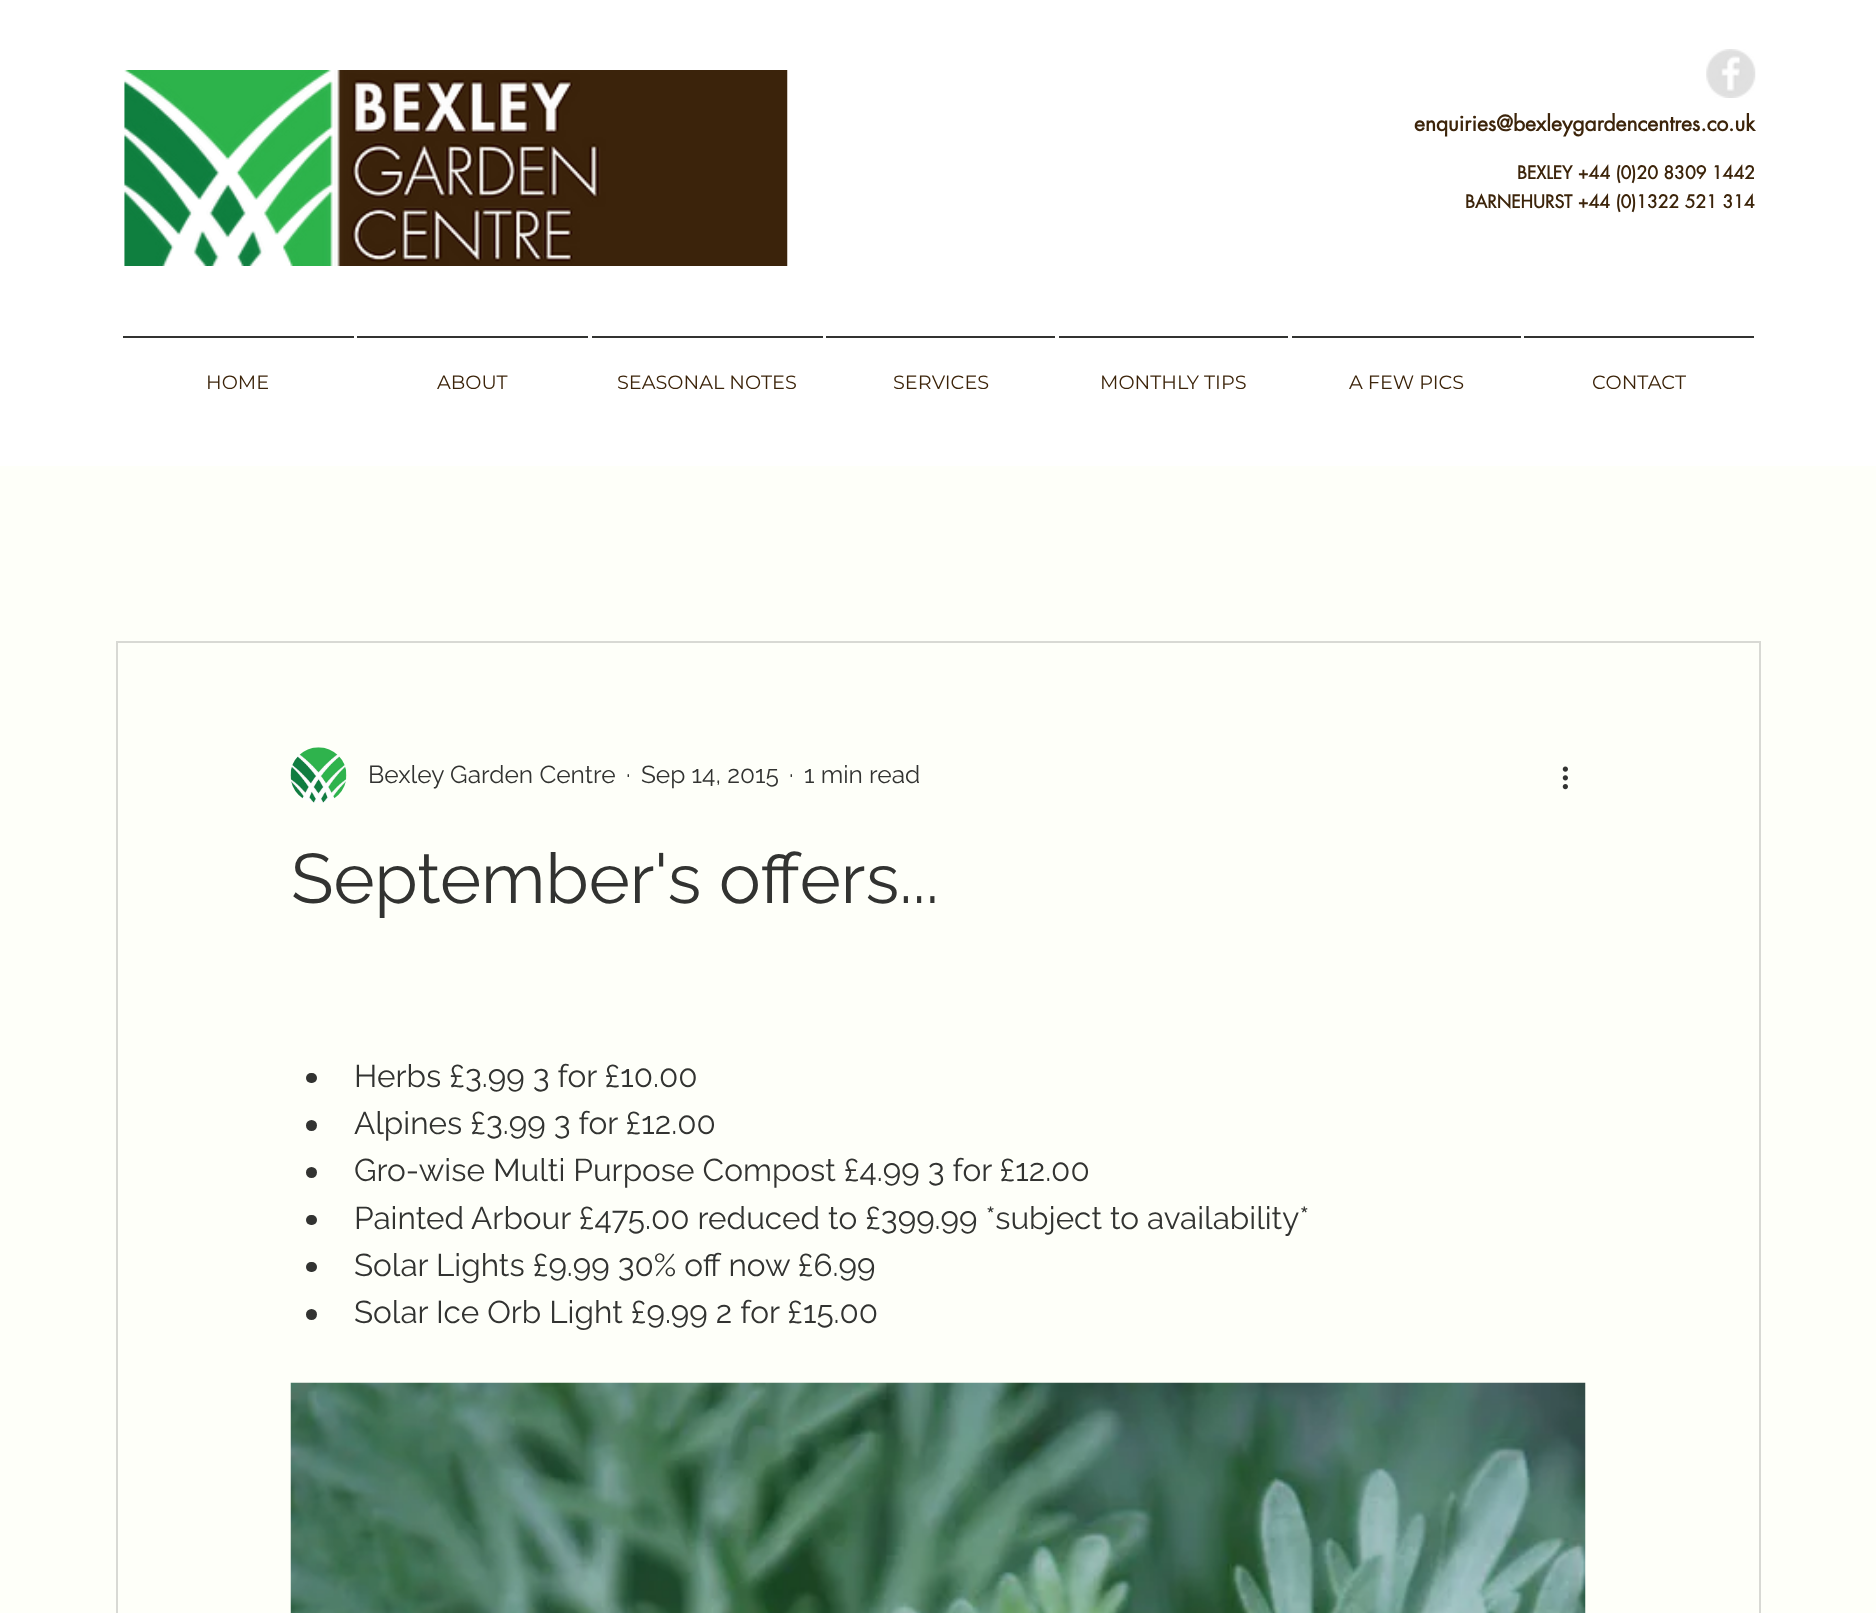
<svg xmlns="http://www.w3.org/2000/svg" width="1876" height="1613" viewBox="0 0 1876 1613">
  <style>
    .t1 { font: bold 21px futura; fill: #3c240a; }
    .t2 { font: bold 17.5px futura; fill: #3c240a; }
    .t3 { font: 19.25px Montserrat; fill: #3c240a; }
    .t4 { font: 24.5px Raleway; fill: #323331; }
    .t5 { font: 70px Raleway; fill: #323331; }
    .t6 { font: 31.5px Raleway; fill: #323331; }
  </style>
  <rect width="100%" height="100%" fill="#fefff9"/>
  <rect x="0" y="0" width="1876" height="466" fill="#fff"/>
  <image x="124" y="70" width="664" height="196" href="images/1.png"/>
  <image x="1706" y="49" width="50" height="49" href="images/2.png"/>
  <text x="1414" y="131" class="t1">enquiries@bexleygardencentres.co.uk</text>
  <text x="1517" y="179" class="t2">BEXLEY +44 (0)20 8309 1442</text>
  <text x="1465" y="208" class="t2">BARNEHURST +44 (0)1322 521 314</text>
  <rect x="123" y="336" width="231" height="2" fill="#323331"/>
  <text x="206" y="389" class="t3">HOME</text>
  <rect x="357" y="336" width="231" height="2" fill="#323331"/>
  <text x="437" y="389" class="t3">ABOUT</text>
  <rect x="592" y="336" width="231" height="2" fill="#323331"/>
  <text x="617" y="389" class="t3">SEASONAL NOTES</text>
  <rect x="826" y="336" width="229" height="2" fill="#323331"/>
  <text x="893" y="389" class="t3">SERVICES</text>
  <rect x="1059" y="336" width="229" height="2" fill="#323331"/>
  <text x="1100" y="389" class="t3">MONTHLY TIPS</text>
  <rect x="1292" y="336" width="229" height="2" fill="#323331"/>
  <text x="1349" y="389" class="t3">A FEW PICS</text>
  <rect x="1524" y="336" width="230" height="2" fill="#323331"/>
  <text x="1592" y="389" class="t3">CONTACT</text>
  <rect x="117" y="642" width="1643" height="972" fill="none" stroke="#d8d9d4" stroke-width="2"/>
  <image x="290" y="747" width="57" height="56" href="images/3.png"/>
  <text x="368" y="783" class="t4">Bexley Garden Centre</text>
  <text x="626" y="783" class="t4">·</text>
  <text x="641" y="783" class="t4">Sep 14, 2015</text>
  <text x="789" y="783" class="t4">·</text>
  <text x="804" y="783" class="t4">1 min read</text>
  <image x="1562" y="766" width="6" height="24" href="images/4.png"/>
  <text x="291" y="903" class="t5">September's offers...</text>
  <rect x="306" y="1073" width="11" height="10" rx="5" fill="#323331"/>
  <text x="354" y="1087" class="t6">Herbs £3.99 3 for £10.00</text>
  <circle cx="311.5" cy="1125.5" r="5.5" fill="#323331"/>
  <text x="354" y="1134" class="t6">Alpines £3.99 3 for £12.00</text>
  <circle cx="311.5" cy="1172.5" r="5.5" fill="#323331"/>
  <text x="354" y="1181" class="t6">Gro-wise Multi Purpose Compost £4.99 3 for £12.00</text>
  <rect x="306" y="1215" width="11" height="10" rx="5" fill="#323331"/>
  <text x="354" y="1229" class="t6">Painted Arbour £475.00 reduced to £399.99 *subject to availability*</text>
  <rect x="306" y="1262" width="11" height="10" rx="5" fill="#323331"/>
  <text x="354" y="1276" class="t6">Solar Lights £9.99 30% off now £6.99</text>
  <circle cx="311.5" cy="1314.5" r="5.5" fill="#323331"/>
  <text x="354" y="1323" class="t6">Solar Ice Orb Light £9.99 2 for £15.00</text>
  <image x="290" y="1382" width="1296" height="231" href="images/5.png"/>
</svg>
